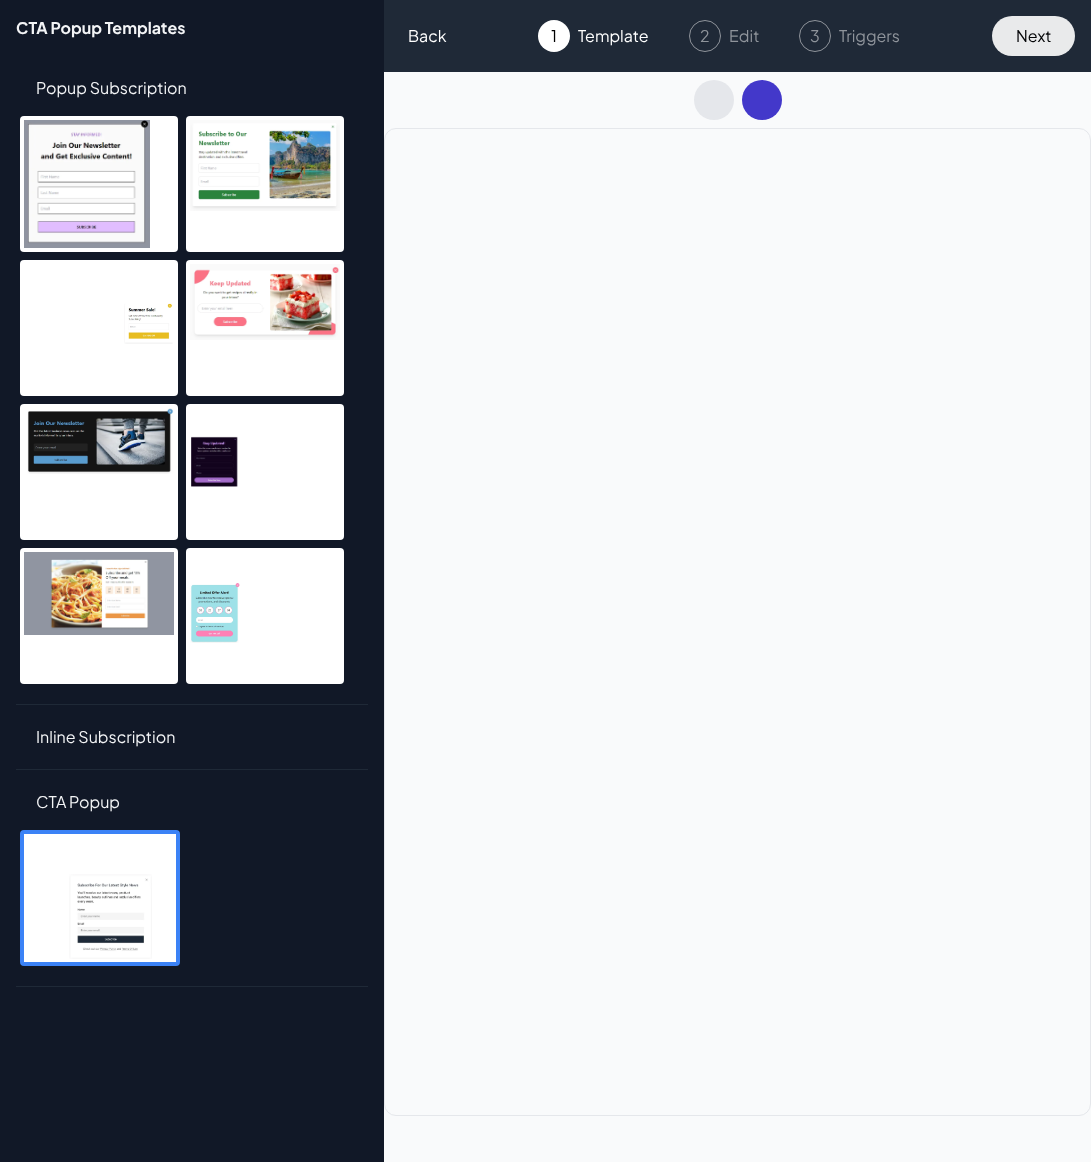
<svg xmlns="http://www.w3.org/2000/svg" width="1091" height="1162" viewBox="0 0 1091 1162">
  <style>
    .t1 { font: bold 16px Plus Jakarta Sans; fill: #f3f4f6; }
    .t2 { font: 16px Plus Jakarta Sans; fill: #f3f4f6; }
    .t3 { font: 16px Plus Jakarta Sans; fill: #fff; }
    .t4 { font: 16px Plus Jakarta Sans; fill: #000; }
    .t5 { font: 16px Plus Jakarta Sans; fill: #8f949b; }
    .t6 { font: 16px Plus Jakarta Sans; fill: #030406; }
  </style>
  <rect width="100%" height="100%" fill="#f9fafb"/>
  <rect x="0" y="0" width="384" height="1162" fill="#111827"/>
  <text x="16" y="34" class="t1">CTA Popup Templates</text>
  <rect x="16" y="704" width="352" height="1" fill="#1f2937"/>
  <text x="36" y="94" class="t2">Popup Subscription</text>
  <rect x="20" y="116" width="158" height="136" rx="4" fill="#fff"/>
  <image x="24" y="120" width="126" height="128" href="images/1.png"/>
  <rect x="186" y="116" width="158" height="136" rx="4" fill="#fff"/>
  <image x="190" y="120" width="150" height="91" href="images/2.png"/>
  <rect x="20" y="260" width="158" height="136" rx="4" fill="#fff"/>
  <image x="124" y="303" width="49" height="41" href="images/3.png"/>
  <rect x="186" y="260" width="158" height="136" rx="4" fill="#fff"/>
  <image x="190" y="264" width="150" height="76" href="images/4.png"/>
  <rect x="20" y="404" width="158" height="136" rx="4" fill="#fff"/>
  <image x="27" y="408" width="147" height="66" href="images/5.png"/>
  <rect x="186" y="404" width="158" height="136" rx="4" fill="#fff"/>
  <image x="191" y="436" width="47" height="51" href="images/6.png"/>
  <rect x="20" y="548" width="158" height="136" rx="4" fill="#fff"/>
  <image x="24" y="552" width="150" height="83" href="images/7.png"/>
  <rect x="186" y="548" width="158" height="136" rx="4" fill="#fff"/>
  <image x="190" y="583" width="50" height="60" href="images/8.png"/>
  <rect x="16" y="769" width="352" height="1" fill="#1f2937"/>
  <text x="36" y="743" class="t2">Inline Subscription</text>
  <rect x="16" y="986" width="352" height="1" fill="#1f2937"/>
  <text x="36" y="808" class="t2">CTA Popup</text>
  <rect x="22" y="832" width="156" height="132" rx="2" fill="#fff" stroke="#3b82f6" stroke-width="4"/>
  <image x="69" y="874" width="83" height="85" href="images/9.png"/>
  <rect x="384" y="0" width="707" height="72" fill="#1f2937"/>
  <text x="408" y="42" class="t3">Back</text>
  <circle cx="554" cy="36" r="16" fill="#fff"/>
  <text x="551" y="42" class="t4">1</text>
  <text x="578" y="42" class="t3">Template</text>
  <circle cx="705" cy="36" r="15.5" fill="none" stroke="#8f949b"/>
  <text x="700" y="42" class="t5">2</text>
  <text x="729" y="42" class="t5">Edit</text>
  <circle cx="815" cy="36" r="15.5" fill="none" stroke="#8f949b"/>
  <text x="810" y="42" class="t5">3</text>
  <text x="839" y="42" class="t5">Triggers</text>
  <rect x="992" y="16" width="83" height="40" rx="20" fill="#e9eaeb"/>
  <text x="1016" y="42" class="t6">Next</text>
  <circle cx="714" cy="100" r="20" fill="#e5e7eb"/>
  <circle cx="762" cy="100" r="20" fill="#4338ca"/>
  <rect x="384.5" y="128.5" width="706" height="987" rx="11.5" fill="none" stroke="#e5e7eb"/>
</svg>
